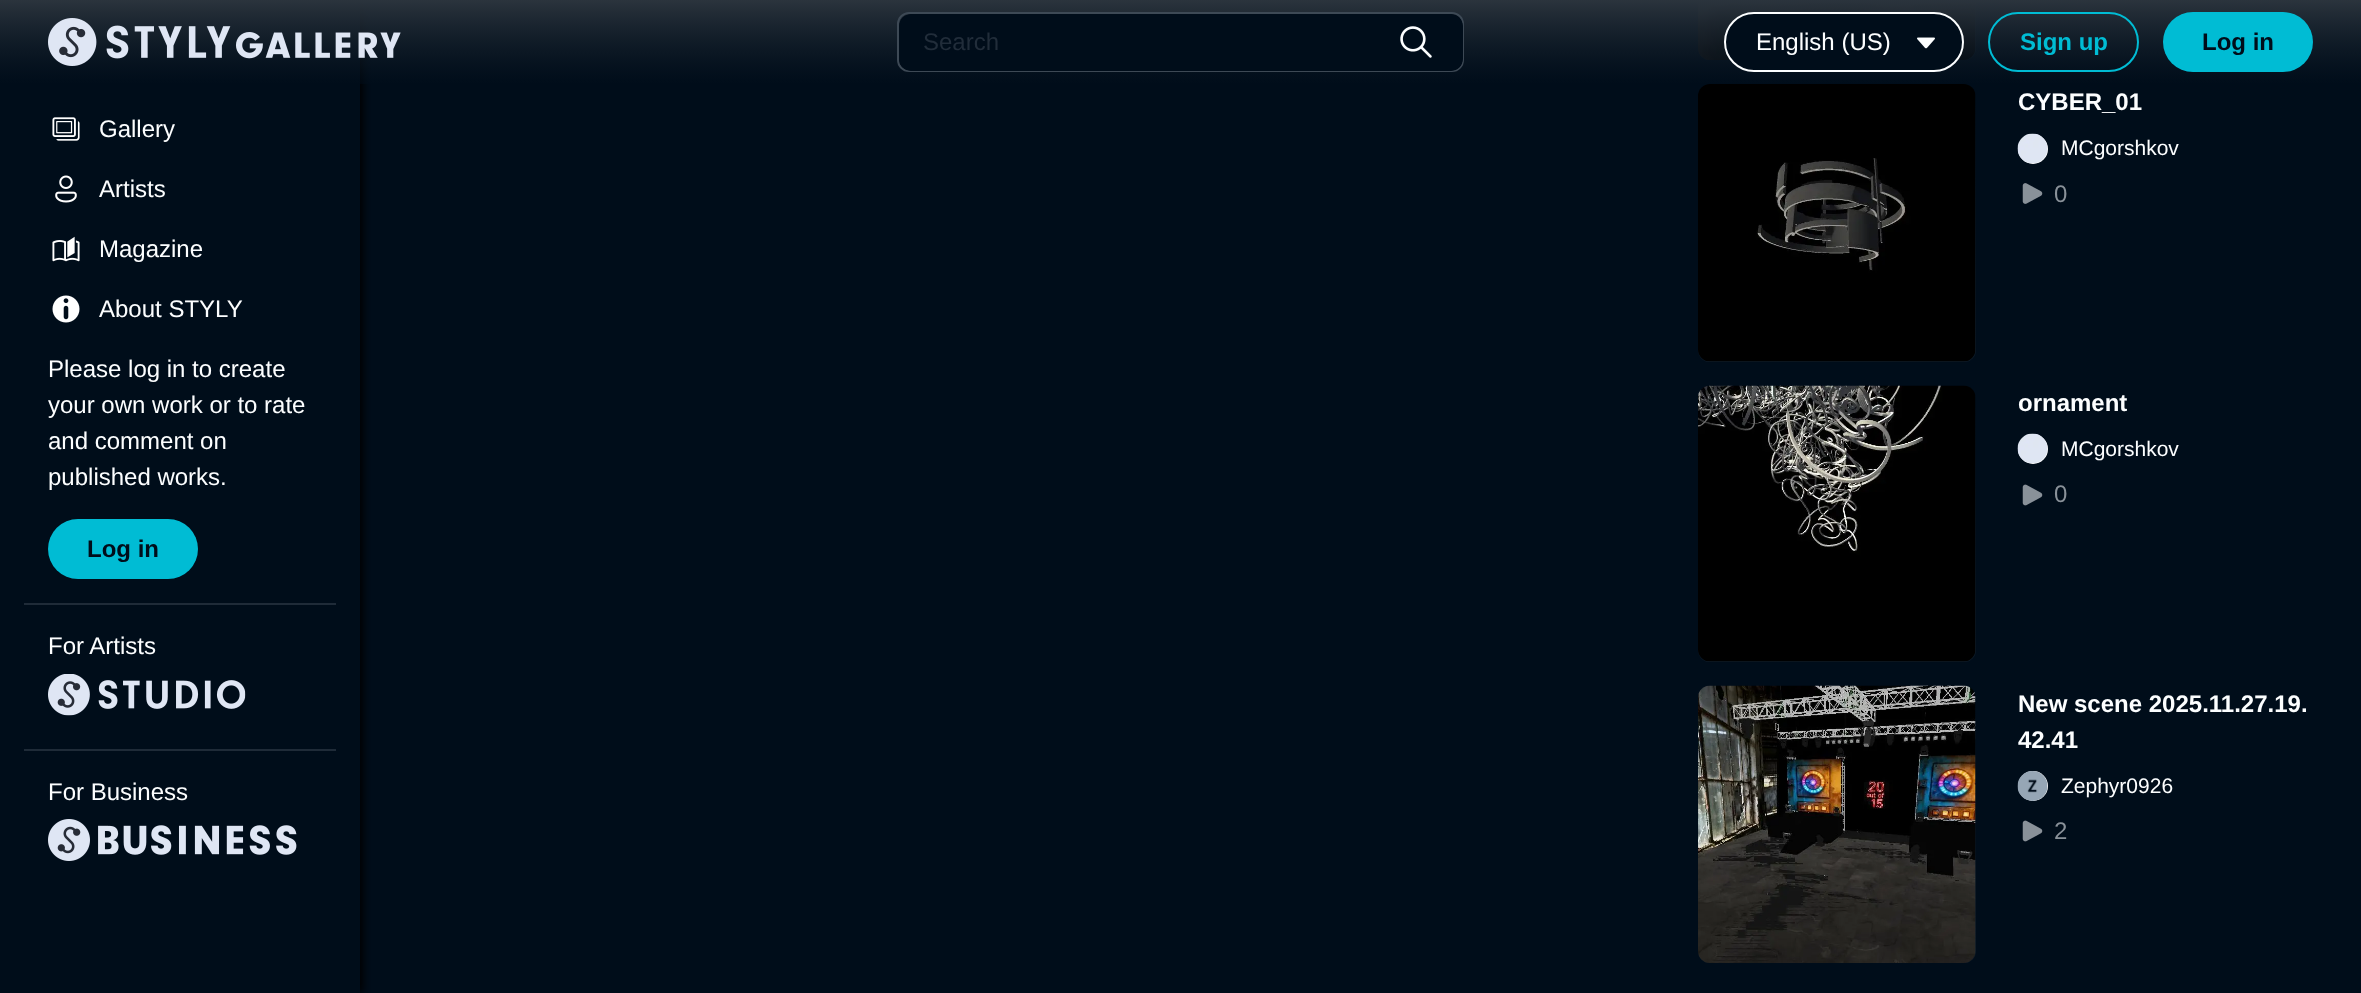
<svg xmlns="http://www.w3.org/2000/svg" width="2361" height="993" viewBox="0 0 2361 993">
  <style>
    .t1 { font: 24px Liberation Sans; fill: #212d3a; }
    .t2 { font: 24px Liberation Sans; fill: #fcfeff; }
    .t3 { font: bold 24px Liberation Sans; fill: #00bcd4; }
    .t4 { font: bold 24px Liberation Sans; fill: #000d1a; }
    .t5 { font: bold 24px Liberation Sans; fill: #fcfeff; }
    .t6 { font: 21px Liberation Sans; fill: #fcfeff; }
    .t7 { font: 24px Liberation Sans; fill: #899199; }
  </style>
  <defs>
    <clipPath id="clip1"><rect x="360" y="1" width="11" height="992"/></clipPath>
    <linearGradient id="g1" gradientUnits="userSpaceOnUse" x1="1837" y1="60" x2="1837" y2="-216"><stop offset="0" stop-color="#0f1c29"/><stop offset="1" stop-color="#000d1a"/></linearGradient>
    <linearGradient id="g2" gradientUnits="userSpaceOnUse" x1="1181" y1="0" x2="1181" y2="84"><stop offset="0" stop-color="#2b343d"/><stop offset="1" stop-color="#000d1a" stop-opacity="0.5"/></linearGradient>
    <clipPath id="clip2"><rect x="899" y="14" width="564" height="57" rx="11"/></clipPath>
    <linearGradient id="g3" gradientUnits="userSpaceOnUse" x1="1837" y1="362" x2="1837" y2="84"><stop offset="0" stop-color="#0f1c29"/><stop offset="1" stop-color="#000d1a"/></linearGradient>
    <linearGradient id="g4" gradientUnits="userSpaceOnUse" x1="1837" y1="662" x2="1837" y2="386"><stop offset="0" stop-color="#0f1c29"/><stop offset="1" stop-color="#000d1a"/></linearGradient>
    <linearGradient id="g5" gradientUnits="userSpaceOnUse" x1="1837" y1="963" x2="1837" y2="686"><stop offset="0" stop-color="#0f1c29"/><stop offset="1" stop-color="#000d1a"/></linearGradient>
  </defs>
  <rect width="100%" height="100%" fill="#000d1a"/>
  <g clip-path="url(#clip1)">
    <rect x="3" y="0" width="360" height="993" fill="#000" filter="blur(4px)"/>
  </g>
  <rect x="1698" y="-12" width="278" height="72" rx="12" fill="url(#g1)"/>
  <image x="1698" y="1" width="278" height="59" href="images/10.png"/>
  <rect x="0" y="0" width="2361" height="84" fill="url(#g2)"/>
  <image x="48" y="18" width="353" height="48" href="images/1.png"/>
  <rect x="898" y="13" width="565" height="58" rx="11" fill="none" stroke="#3d4955" stroke-width="2"/>
  <g clip-path="url(#clip2)">
    <path d="M911 14H1370V71H911C904.5 71 899 65.5 899 59V26C899 19.5 904.5 14 911 14Z" fill="#000d1a"/>
  </g>
  <text x="923" y="50" class="t1">Search</text>
  <g clip-path="url(#clip2)">
    <path d="M1370 14H1451C1457.5 14 1463 19.5 1463 26V59C1463 65.5 1457.5 71 1451 71H1370Z" fill="#000d1a"/>
  </g>
  <image x="1400" y="26" width="32" height="32" href="images/2.png"/>
  <rect x="1725" y="13" width="238" height="58" rx="29" fill="#000d1a" stroke="#fcfeff" stroke-width="2"/>
  <text x="1756" y="50" class="t2">English (US)</text>
  <image x="1917" y="37" width="18" height="12" href="images/3.png"/>
  <rect x="1989" y="13" width="149" height="58" rx="29" fill="none" stroke="#00bcd4" stroke-width="2"/>
  <text x="2020" y="50" class="t3">Sign up</text>
  <rect x="2163" y="12" width="150" height="60" rx="30" fill="#00bcd4"/>
  <text x="2202" y="50" class="t4">Log in</text>
  <image x="52" y="117" width="28" height="24" href="images/4.png"/>
  <text x="99" y="137" class="t2">Gallery</text>
  <image x="55" y="175" width="22" height="28" href="images/5.png"/>
  <text x="99" y="197" class="t2">Artists</text>
  <image x="52" y="236" width="28" height="26" href="images/6.png"/>
  <text x="99" y="257" class="t2">Magazine</text>
  <image x="52" y="295" width="28" height="28" href="images/7.png"/>
  <text x="99" y="317" class="t2">About STYLY</text>
  <text x="48" y="377" class="t2">Please log in to create</text>
  <text x="48" y="413" class="t2">your own work or to rate</text>
  <text x="48" y="449" class="t2">and comment on</text>
  <text x="48" y="485" class="t2">published works.</text>
  <rect x="48" y="519" width="150" height="60" rx="30" fill="#00bcd4"/>
  <text x="87" y="557" class="t4">Log in</text>
  <rect x="24" y="603" width="312" height="2" fill="#1f2b38"/>
  <text x="48" y="654" class="t2">For Artists</text>
  <image x="48" y="674" width="198" height="42" href="images/8.png"/>
  <rect x="24" y="749" width="312" height="2" fill="#1f2b38"/>
  <text x="48" y="800" class="t2">For Business</text>
  <image x="48" y="819" width="249" height="42" href="images/9.png"/>
  <rect x="1698" y="84" width="278" height="278" rx="12" fill="url(#g3)"/>
  <image x="1698" y="84" width="278" height="278" href="images/11.png"/>
  <text x="2018" y="110" class="t5">CYBER_01</text>
  <circle cx="2033" cy="149" r="15" fill="#fff"/>
  <image x="2017" y="133" width="31" height="31" href="images/12.png"/>
  <text x="2061" y="155" class="t6">MCgorshkov</text>
  <image x="2022" y="183" width="21" height="21" href="images/13.png"/>
  <text x="2054" y="202" class="t7">0</text>
  <rect x="1698" y="386" width="278" height="276" rx="12" fill="url(#g4)"/>
  <image x="1698" y="385" width="278" height="277" href="images/14.png"/>
  <text x="2018" y="411" class="t5">ornament</text>
  <circle cx="2033" cy="449" r="15" fill="#fff"/>
  <image x="2017" y="433" width="31" height="31" href="images/15.png"/>
  <text x="2061" y="456" class="t6">MCgorshkov</text>
  <image x="2022" y="484" width="21" height="22" href="images/16.png"/>
  <text x="2054" y="502" class="t7">0</text>
  <rect x="1698" y="686" width="278" height="277" rx="12" fill="url(#g5)"/>
  <image x="1698" y="685" width="278" height="278" href="images/17.png"/>
  <text x="2018" y="712" class="t5">New scene 2025.11.27.19.</text>
  <text x="2018" y="748" class="t5">42.41</text>
  <circle cx="2033" cy="786" r="15" fill="#fff"/>
  <image x="2017" y="771" width="31" height="30" href="images/18.png"/>
  <text x="2061" y="793" class="t6">Zephyr0926</text>
  <image x="2022" y="820" width="21" height="22" href="images/16.png"/>
  <text x="2054" y="839" class="t7">2</text>
</svg>
